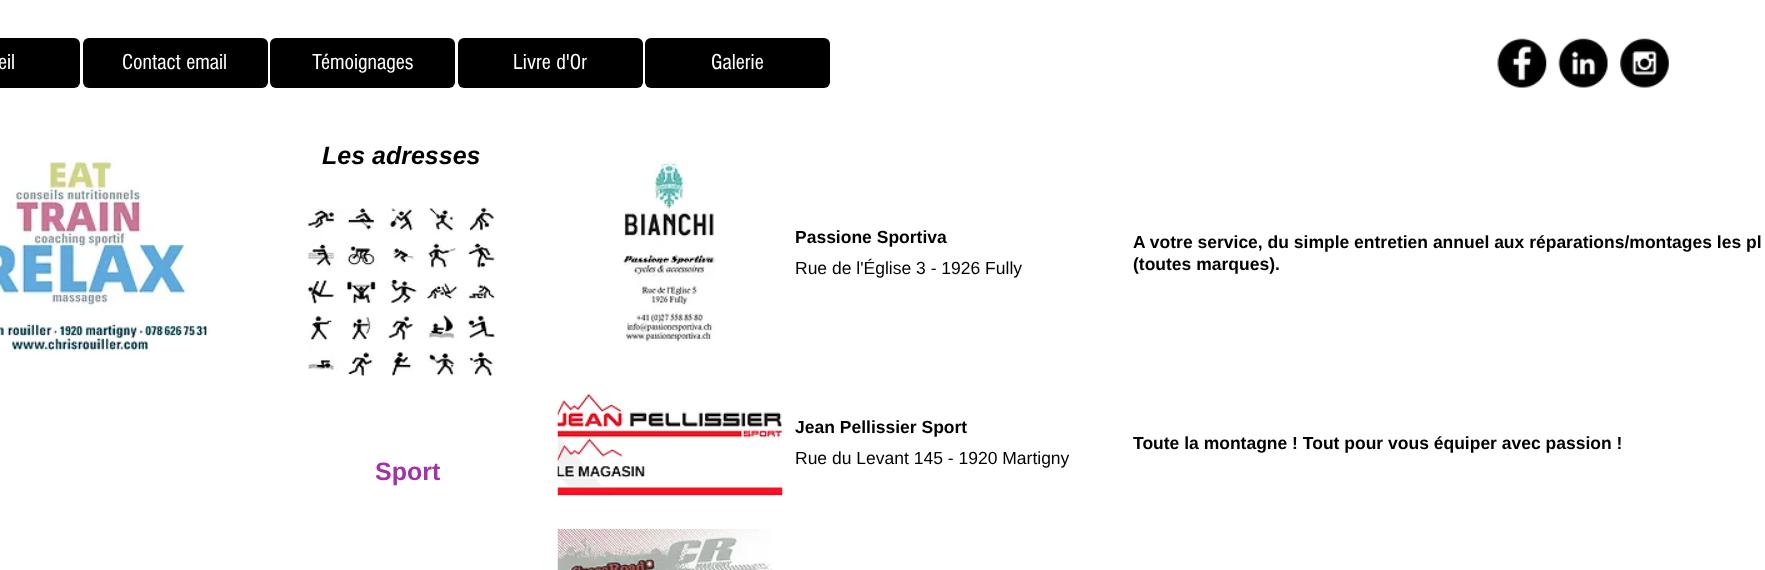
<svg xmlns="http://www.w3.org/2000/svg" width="1765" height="570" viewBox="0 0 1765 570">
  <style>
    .t1 { font: 22.5px 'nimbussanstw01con'; fill: #fff; }
    .t2 { font: italic bold 25px Liberation Sans; fill: #000; }
    .t3 { font: bold 17.5px Liberation Sans; fill: #000; }
    .t4 { font: 17.5px Liberation Sans; fill: #000; }
    .t5 { font: bold 25px Liberation Sans; fill: #a232a6; }
  </style>
  <rect width="100%" height="100%" fill="#fff"/>
  <rect x="-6" y="38" width="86" height="50" rx="6" fill="#000"/>
  <text x="-2" y="69" class="t1">eil</text>
  <rect x="270" y="38" width="185" height="50" rx="6" fill="#000"/>
  <text x="312" y="69" class="t1">Témoignages</text>
  <rect x="458" y="38" width="185" height="50" rx="6" fill="#000"/>
  <text x="513" y="69" class="t1">Livre d'Or</text>
  <rect x="645" y="38" width="185" height="50" rx="6" fill="#000"/>
  <text x="711" y="69" class="t1">Galerie</text>
  <image x="1497" y="38" width="50" height="50" href="images/1.png"/>
  <image x="1558" y="38" width="50" height="50" href="images/2.png"/>
  <image x="1620" y="38" width="49" height="50" href="images/3.png"/>
  <rect x="83" y="38" width="185" height="50" rx="6" fill="#000"/>
  <text x="122" y="69" class="t1">Contact email</text>
  <image x="0" y="155" width="210" height="200" href="images/4.png"/>
  <text x="322" y="164" class="t2">Les adresses</text>
  <image x="307" y="207" width="188" height="170" href="images/5.png"/>
  <image x="620" y="161" width="96" height="181" href="images/6.png"/>
  <text x="795" y="243" class="t3">Passione Sportiva</text>
  <text x="795" y="274" class="t4">Rue de l'Église 3 - 1926 Fully</text>
  <text x="1133" y="248" class="t3">A votre service, du simple entretien annuel aux réparations/montages les pl</text>
  <text x="1133" y="270" class="t3">(toutes marques).</text>
  <image x="557" y="393" width="226" height="103" href="images/7.png"/>
  <text x="795" y="433" class="t3">Jean Pellissier Sport</text>
  <text x="795" y="464" class="t4">Rue du Levant 145 - 1920 Martigny</text>
  <text x="1133" y="449" class="t3">Toute la montagne ! Tout pour vous équiper avec passion !</text>
  <image x="557" y="528" width="216" height="42" href="images/8.png"/>
  <text x="375" y="480" class="t5">Sport</text>
</svg>
